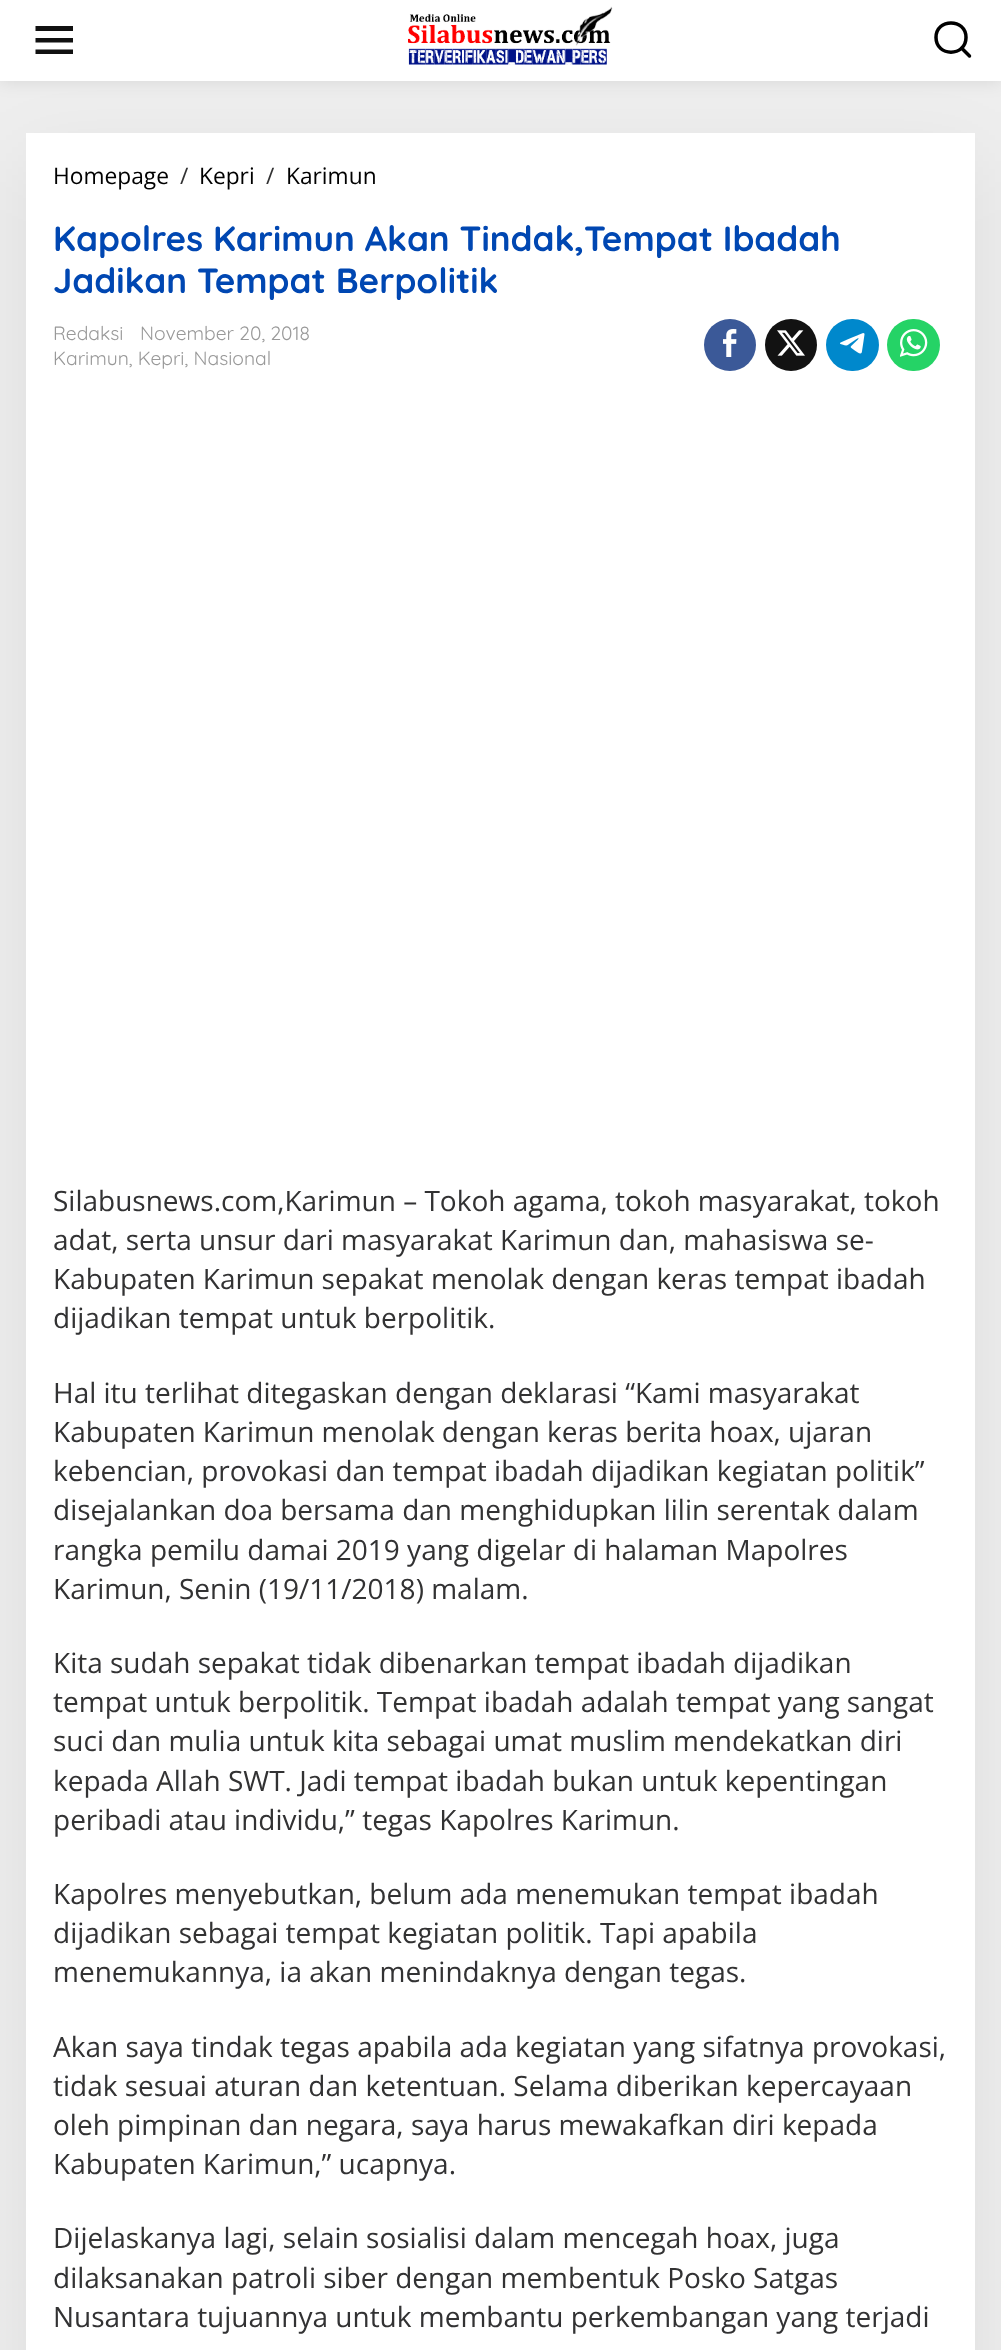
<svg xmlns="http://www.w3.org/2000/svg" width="1001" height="2350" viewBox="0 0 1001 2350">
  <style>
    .t1 { font: 22.75px Open Sans; fill: #000; }
    .t2 { font: 22.75px Open Sans; fill: #323233; }
    .t3 { font: bold 35px Quicksand; fill: #0047b2; }
    .t4 { font: 19.25px Quicksand; fill: #999; }
    .t5 { font: 28px Open Sans; fill: #323233; }
  </style>
  <rect width="100%" height="100%" fill="#eee"/>
  <rect x="0" y="0" width="1001" height="81" fill="#0000001a" filter="blur(9px)"/>
  <rect x="26" y="161" width="949" height="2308" fill="#00000012" filter="blur(39.5px)"/>
  <rect x="0" y="0" width="1001" height="81" fill="#fff"/>
  <path d="M35.5 26H73V31H35.5ZM35.5 38H73V42.5H35.5ZM35.5 49.5H73V54H35.5Z" fill="#111"/>
  <image x="408" y="6" width="205" height="59" href="images/1.png"/>
  <path d="M969.5 56L961.5 48M966 37.5C966 57 936 57 936 37.5C936 18 966 18 966 37.5Z" fill="none" stroke="#000" stroke-width="3.5" stroke-linecap="round"/>
  <rect x="26" y="133" width="949" height="2217" fill="#fff"/>
  <text x="53" y="184" class="t1">Homepage</text>
  <text x="180" y="184" class="t2">/</text>
  <text x="199" y="184" class="t1">Kepri</text>
  <text x="266" y="184" class="t2">/</text>
  <text x="286" y="184" class="t1">Karimun</text>
  <text x="53" y="251" class="t3">Kapolres Karimun Akan Tindak,Tempat Ibadah</text>
  <text x="53" y="293" class="t3">Jadikan Tempat Berpolitik</text>
  <text x="53" y="340" class="t4">Redaksi</text>
  <text x="140" y="340" class="t4">November 20, 2018</text>
  <text x="53" y="365" class="t4">Karimun, Kepri, Nasional</text>
  <circle cx="730" cy="345" r="26" fill="#3b5998"/>
  <image x="723" y="329" width="14" height="28" href="images/2.png"/>
  <circle cx="791" cy="345" r="26" fill="#121212"/>
  <image x="777" y="330" width="28" height="26" href="images/3.png"/>
  <rect x="826" y="319" width="53" height="52" rx="26" fill="#08c"/>
  <image x="840" y="333" width="25" height="21" href="images/4.png"/>
  <rect x="887" y="319" width="53" height="52" rx="26" fill="#25d366"/>
  <image x="900" y="329" width="28" height="28" href="images/5.png"/>
  <text x="53" y="1211" class="t5">Silabusnews.com,Karimun – Tokoh agama, tokoh masyarakat, tokoh</text>
  <text x="53" y="1250" class="t5">adat, serta unsur dari masyarakat Karimun dan, mahasiswa se-</text>
  <text x="53" y="1289" class="t5">Kabupaten Karimun sepakat menolak dengan keras tempat ibadah</text>
  <text x="53" y="1328" class="t5">dijadikan tempat untuk berpolitik.</text>
  <text x="53" y="1403" class="t5">Hal itu terlihat ditegaskan dengan deklarasi “Kami masyarakat</text>
  <text x="53" y="1442" class="t5">Kabupaten Karimun menolak dengan keras berita hoax, ujaran</text>
  <text x="53" y="1481" class="t5">kebencian, provokasi dan tempat ibadah dijadikan kegiatan politik”</text>
  <text x="53" y="1520" class="t5">disejalankan doa bersama dan menghidupkan lilin serentak dalam</text>
  <text x="53" y="1560" class="t5">rangka pemilu damai 2019 yang digelar di halaman Mapolres</text>
  <text x="53" y="1599" class="t5">Karimun, Senin (19/11/2018) malam.</text>
  <text x="53" y="1673" class="t5">Kita sudah sepakat tidak dibenarkan tempat ibadah dijadikan</text>
  <text x="53" y="1712" class="t5">tempat untuk berpolitik. Tempat ibadah adalah tempat yang sangat</text>
  <text x="53" y="1751" class="t5">suci dan mulia untuk kita sebagai umat muslim mendekatkan diri</text>
  <text x="53" y="1791" class="t5">kepada Allah SWT. Jadi tempat ibadah bukan untuk kepentingan</text>
  <text x="53" y="1830" class="t5">peribadi atau individu,” tegas Kapolres Karimun.</text>
  <text x="53" y="1904" class="t5">Kapolres menyebutkan, belum ada menemukan tempat ibadah</text>
  <text x="53" y="1943" class="t5">dijadikan sebagai tempat kegiatan politik. Tapi apabila</text>
  <text x="53" y="1982" class="t5">menemukannya, ia akan menindaknya dengan tegas.</text>
  <text x="53" y="2057" class="t5">Akan saya tindak tegas apabila ada kegiatan yang sifatnya provokasi,</text>
  <text x="53" y="2096" class="t5">tidak sesuai aturan dan ketentuan. Selama diberikan kepercayaan</text>
  <text x="53" y="2135" class="t5">oleh pimpinan dan negara, saya harus mewakafkan diri kepada</text>
  <text x="53" y="2174" class="t5">Kabupaten Karimun,” ucapnya.</text>
  <text x="53" y="2248" class="t5">Dijelaskanya lagi, selain sosialisi dalam mencegah hoax, juga</text>
  <text x="53" y="2288" class="t5">dilaksanakan patroli siber dengan membentuk Posko Satgas</text>
  <text x="53" y="2327" class="t5">Nusantara tujuannya untuk membantu perkembangan yang terjadi</text>
</svg>
